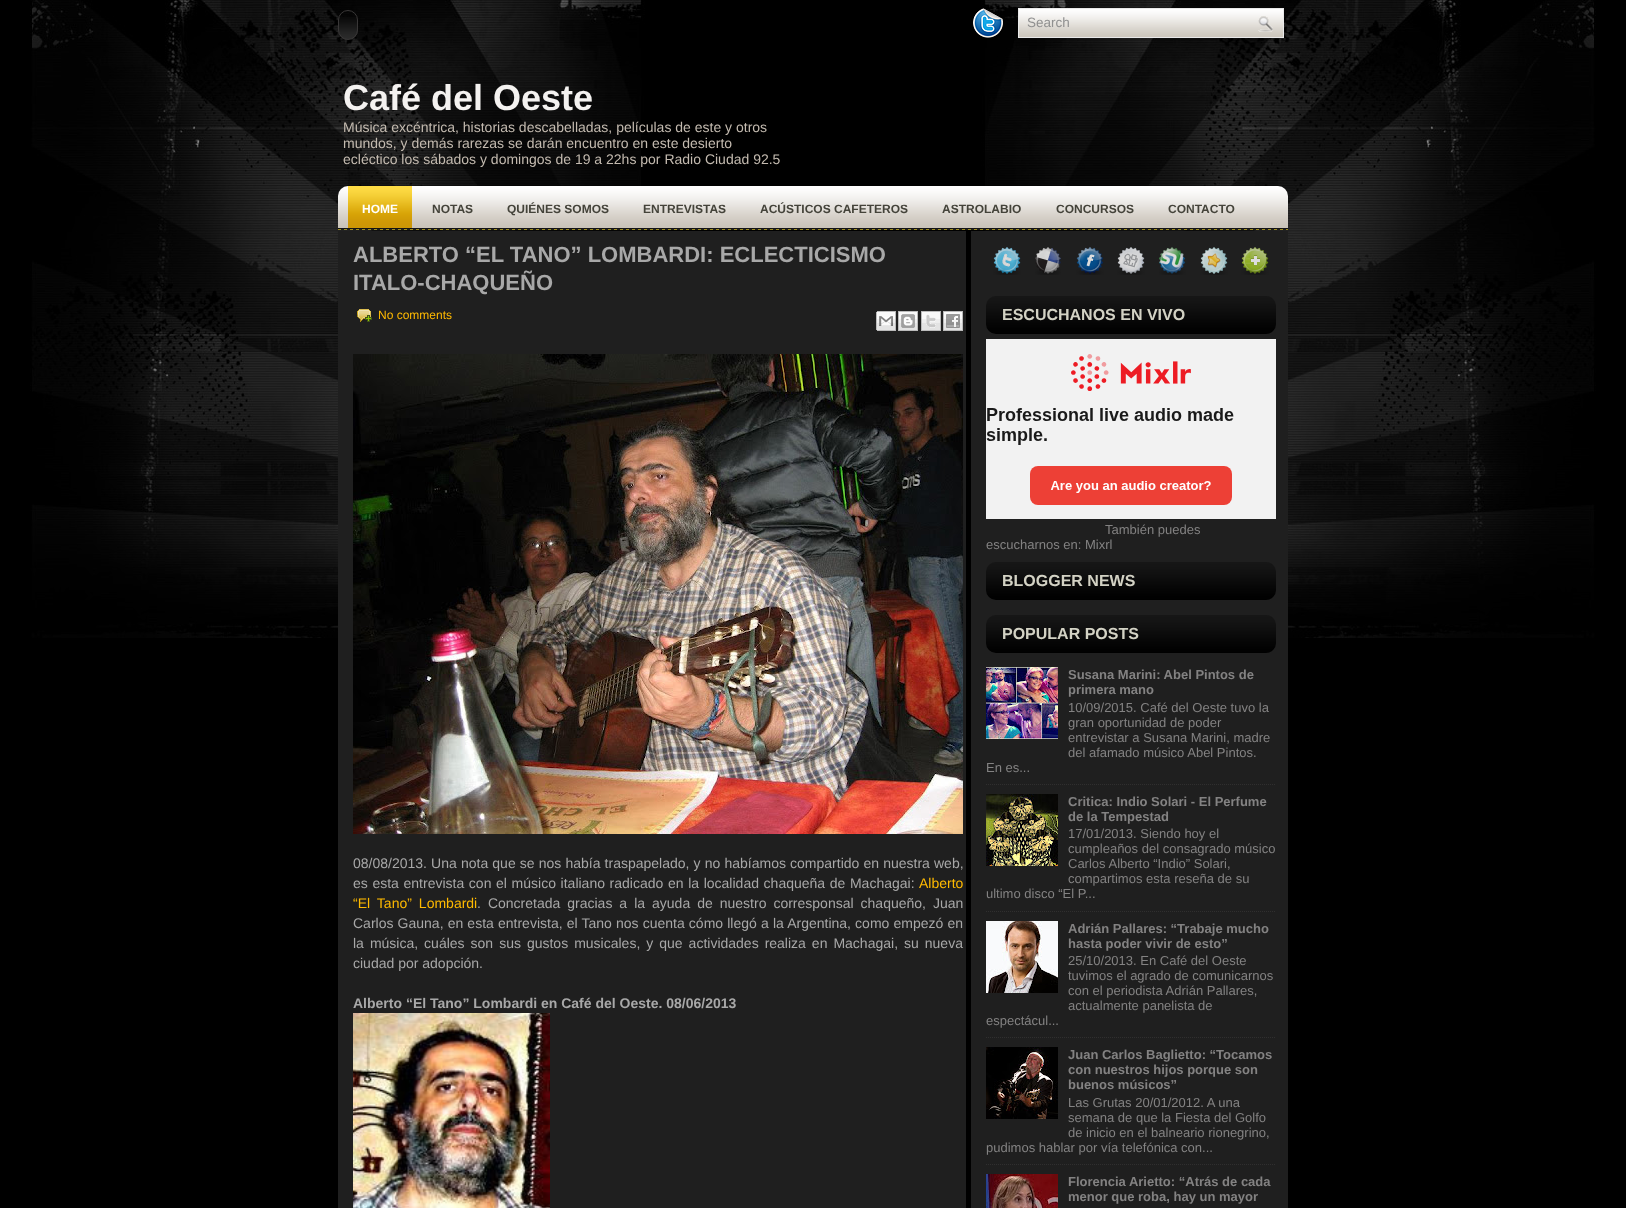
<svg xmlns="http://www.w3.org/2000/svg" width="1626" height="1208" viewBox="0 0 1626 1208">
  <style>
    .t1 { font: 13.5px Liberation Sans; fill: #909090; }
    .t2 { font: bold 36px Liberation Sans; fill: #f4f2f0; }
    .t3 { font: 14px Liberation Sans; fill: #c4bbb0; }
    .t4 { font: bold 12px Liberation Sans; fill: #fff; }
    .t5 { font: bold 12px Liberation Sans; fill: #44433a; }
    .t6 { font: bold 22px Liberation Sans; fill: #a8a8a8; }
    .t7 { font: 12px Liberation Sans; fill: #ffba00; }
    .t8 { font: 14px Liberation Sans; fill: #a8a8a8; }
    .t9 { font: 14px Liberation Sans; fill: #ffba00; }
    .t10 { font: bold 14px Liberation Sans; fill: #a8a8a8; }
    .t11 { font: bold 16px Liberation Sans; fill: #d3d2c4; }
    .t12 { font: 13px Liberation Sans; fill: #838282; }
    .t13 { font: bold 13px Liberation Sans; fill: #838282; }
  </style>
  <rect width="100%" height="100%" fill="#000"/>
  <image x="30" y="0" width="1566" height="638" href="images/1.png"/>
  <image x="338" y="17" width="20" height="22" href="images/2.png"/>
  <rect x="338.5" y="10.5" width="19" height="29" rx="9.5" fill="none" stroke="#393737"/>
  <image x="973" y="8" width="30" height="30" href="images/3.png"/>
  <image x="1019" y="9" width="264" height="28" href="images/4.png"/>
  <rect x="1018.5" y="8.5" width="265" height="29" fill="none" stroke="#e9e9e9"/>
  <text x="1027" y="27" class="t1">Search</text>
  <image x="1258" y="16" width="15" height="16" href="images/5.png"/>
  <text x="343" y="110" class="t2">Café del Oeste</text>
  <text x="343" y="132" class="t3">Música excéntrica, historias descabelladas, películas de este y otros</text>
  <text x="343" y="148" class="t3">mundos, y demás rarezas se darán encuentro en este desierto</text>
  <text x="343" y="164" class="t3">ecléctico los sábados y domingos de 19 a 22hs por Radio Ciudad 92.5</text>
  <image x="338" y="186" width="950" height="44" href="images/6.png"/>
  <image x="348" y="186" width="64" height="42" href="images/7.png"/>
  <text x="362" y="213" class="t4">HOME</text>
  <text x="432" y="213" class="t5">NOTAS</text>
  <text x="507" y="213" class="t5">QUIÉNES SOMOS</text>
  <text x="643" y="213" class="t5">ENTREVISTAS</text>
  <text x="760" y="213" class="t5">ACÚSTICOS CAFETEROS</text>
  <text x="942" y="213" class="t5">ASTROLABIO</text>
  <text x="1056" y="213" class="t5">CONCURSOS</text>
  <text x="1168" y="213" class="t5">CONTACTO</text>
  <rect x="338" y="231" width="950" height="977" fill="#1f1f1f"/>
  <rect x="966" y="231" width="5" height="977" fill="#000"/>
  <text x="353" y="262" class="t6">ALBERTO “EL TANO” LOMBARDI: ECLECTICISMO</text>
  <text x="353" y="290" class="t6">ITALO-CHAQUEÑO</text>
  <image x="357" y="309" width="15" height="13" href="images/8.png"/>
  <text x="378" y="319" class="t7">No comments</text>
  <image x="876" y="311" width="20" height="20" href="images/9.png"/>
  <image x="898" y="311" width="20" height="20" href="images/10.png"/>
  <image x="921" y="311" width="20" height="20" href="images/11.png"/>
  <image x="943" y="311" width="20" height="20" href="images/12.png"/>
  <image x="353" y="354" width="610" height="480" href="images/13.png"/>
  <text x="353" y="868" word-spacing="0.25" class="t8">08/08/2013. Una nota que se nos había traspapelado, y no habíamos compartido en nuestra web,</text>
  <text x="353" y="888" word-spacing="0.75" class="t8">es esta entrevista con el músico italiano radicado en la localidad chaqueña de Machagai:</text>
  <text x="919" y="888" class="t9">Alberto</text>
  <text x="353" y="908" word-spacing="3.1" class="t9">“El Tano” Lombardi</text>
  <text x="477" y="908" word-spacing="3.1" class="t8">. Concretada gracias a la ayuda de nuestro corresponsal chaqueño, Juan</text>
  <text x="353" y="928" word-spacing="0.25" class="t8">Carlos Gauna, en esta entrevista, el Tano nos cuenta cómo llegó a la Argentina, como empezó en</text>
  <text x="353" y="948" word-spacing="2.1" class="t8">la música, cuáles son sus gustos musicales, y que actividades realiza en Machagai, su nueva</text>
  <text x="353" y="968" class="t8">ciudad por adopción.</text>
  <text x="353" y="1008" class="t10">Alberto “El Tano” Lombardi en Café del Oeste. 08/06/2013</text>
  <image x="353" y="1013" width="197" height="195" href="images/14.png"/>
  <image x="993" y="247" width="28" height="28" href="images/15.png"/>
  <image x="1035" y="247" width="26" height="28" href="images/16.png"/>
  <image x="1076" y="247" width="28" height="28" href="images/17.png"/>
  <image x="1117" y="247" width="28" height="28" href="images/18.png"/>
  <image x="1159" y="247" width="27" height="28" href="images/19.png"/>
  <image x="1200" y="247" width="28" height="28" href="images/20.png"/>
  <image x="1241" y="247" width="28" height="28" href="images/21.png"/>
  <image x="986" y="296" width="290" height="38" href="images/22.png"/>
  <text x="1002" y="320" class="t11">ESCUCHANOS EN VIVO</text>
  <image x="986" y="339" width="290" height="180" href="images/23.png"/>
  <text x="1105" y="534" class="t12">También puedes</text>
  <text x="986" y="549" class="t12">escucharnos en: Mixrl</text>
  <image x="986" y="562" width="290" height="38" href="images/22.png"/>
  <text x="1002" y="586" class="t11">BLOGGER NEWS</text>
  <image x="986" y="615" width="290" height="38" href="images/22.png"/>
  <text x="1002" y="639" class="t11">POPULAR POSTS</text>
  <path d="M986 784.5H1276" fill="none" stroke="#302f2f" stroke-dasharray="1 1"/>
  <image x="986" y="667" width="72" height="72" href="images/24.png"/>
  <text x="1068" y="679" class="t13">Susana Marini: Abel Pintos de</text>
  <text x="1068" y="694" class="t13">primera mano</text>
  <text x="1068" y="712" class="t12">10/09/2015. Café del Oeste tuvo la</text>
  <text x="1068" y="727" class="t12">gran oportunidad de poder</text>
  <text x="1068" y="742" class="t12">entrevistar a Susana Marini, madre</text>
  <text x="1068" y="757" class="t12">del afamado músico Abel Pintos.</text>
  <text x="986" y="772" class="t12">En es...</text>
  <path d="M986 911.5H1276" fill="none" stroke="#302f2f" stroke-dasharray="1 1"/>
  <image x="986" y="794" width="72" height="72" href="images/25.png"/>
  <text x="1068" y="806" class="t13">Critica: Indio Solari - El Perfume</text>
  <text x="1068" y="821" class="t13">de la Tempestad</text>
  <text x="1068" y="838" class="t12">17/01/2013. Siendo hoy el</text>
  <text x="1068" y="853" class="t12">cumpleaños del consagrado músico</text>
  <text x="1068" y="868" class="t12">Carlos Alberto “Indio” Solari,</text>
  <text x="1068" y="883" class="t12">compartimos esta reseña de su</text>
  <text x="986" y="898" class="t12">ultimo disco “El P...</text>
  <path d="M986 1037.5H1276" fill="none" stroke="#302f2f" stroke-dasharray="1 1"/>
  <image x="986" y="921" width="72" height="72" href="images/26.png"/>
  <text x="1068" y="933" class="t13">Adrián Pallares: “Trabaje mucho</text>
  <text x="1068" y="948" class="t13">hasta poder vivir de esto”</text>
  <text x="1068" y="965" class="t12">25/10/2013. En Café del Oeste</text>
  <text x="1068" y="980" class="t12">tuvimos el agrado de comunicarnos</text>
  <text x="1068" y="995" class="t12">con el periodista Adrián Pallares,</text>
  <text x="1068" y="1010" class="t12">actualmente panelista de</text>
  <text x="986" y="1025" class="t12">espectácul...</text>
  <path d="M986 1164.5H1276" fill="none" stroke="#302f2f" stroke-dasharray="1 1"/>
  <image x="986" y="1047" width="72" height="72" href="images/27.png"/>
  <text x="1068" y="1059" class="t13">Juan Carlos Baglietto: “Tocamos</text>
  <text x="1068" y="1074" class="t13">con nuestros hijos porque son</text>
  <text x="1068" y="1089" class="t13">buenos músicos”</text>
  <text x="1068" y="1107" class="t12">Las Grutas 20/01/2012. A una</text>
  <text x="1068" y="1122" class="t12">semana de que la Fiesta del Golfo</text>
  <text x="1068" y="1137" class="t12">de inicio en el balneario rionegrino,</text>
  <text x="986" y="1152" class="t12">pudimos hablar por vía telefónica con...</text>
  <image x="986" y="1174" width="72" height="34" href="images/28.png"/>
  <text x="1068" y="1186" class="t13">Florencia Arietto: “Atrás de cada</text>
  <text x="1068" y="1201" class="t13">menor que roba, hay un mayor</text>
</svg>
